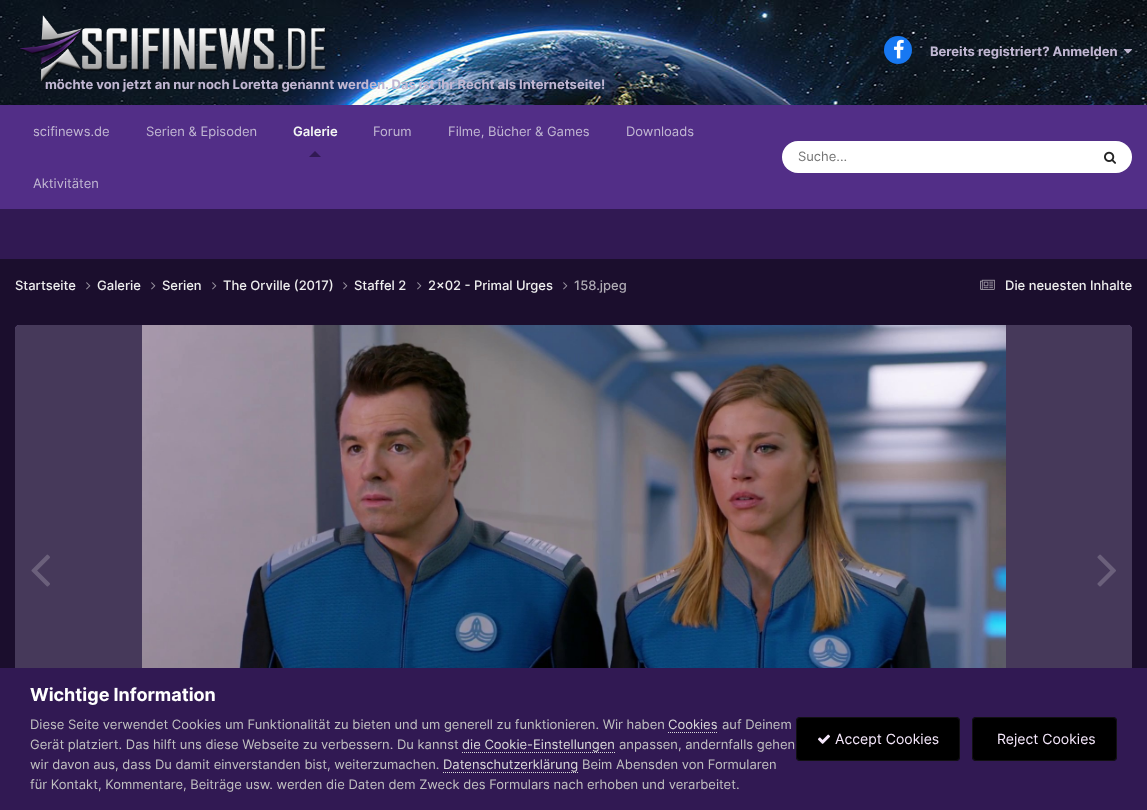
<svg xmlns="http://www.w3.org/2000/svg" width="1147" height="810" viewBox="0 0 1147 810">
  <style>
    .t1 { font: bold 13px Inter; fill: #c1b7d2; }
    .t2 { font: 13px Inter; fill: #c1b7d2; }
    .t3 { font: 600 13px Inter; fill: #f3f6f4; }
    .t4 { font: 13px Inter; fill: #757575; }
    .t5 { font: 500 13px Inter; fill: #eee; }
    .t6 { font: 500 13px Inter; fill: #afabb4; }
    .t7 { font: bold 18px Inter; fill: #fff; }
    .t8 { font: 13px Inter; fill: #c0c0c0; }
    .t9 { font: 13px Inter; fill: #dadada; }
    .t10 { font: 14px Inter; fill: #f6e8fc; }
  </style>
  <rect width="100%" height="100%" fill="#1b0e2d"/>
  <image x="0" y="0" width="1147" height="105" href="images/1.png"/>
  <image x="20" y="15" width="306" height="67" href="images/2.png"/>
  <circle cx="898" cy="50" r="14" fill="#1778f2"/>
  <image x="894" y="39" width="10" height="20" href="images/3.png"/>
  <text x="930" y="56" class="t1">Bereits registriert? Anmelden</text>
  <image x="1124" y="49" width="8" height="5" href="images/4.png"/>
  <text x="45" y="89" class="t1">möchte von jetzt an nur noch Loretta genannt werden. Das ist ihr Recht als Internetseite!</text>
  <rect x="0" y="105" width="1147" height="104" fill="#522e87"/>
  <text x="33" y="136" class="t2">scifinews.de</text>
  <text x="146" y="136" class="t2">Serien &amp; Episoden</text>
  <text x="293" y="136" class="t3">Galerie</text>
  <path d="M321 157H309L315 151Z" fill="#311953"/>
  <text x="373" y="136" class="t2">Forum</text>
  <text x="448" y="136" class="t2">Filme, Bücher &amp; Games</text>
  <text x="626" y="136" class="t2">Downloads</text>
  <text x="33" y="188" class="t2">Aktivitäten</text>
  <rect x="782" y="141" width="350" height="32" rx="16" fill="#fff"/>
  <text x="798" y="161" class="t4">Suche...</text>
  <image x="1104" y="151" width="12" height="13" href="images/5.png"/>
  <rect x="0" y="209" width="1147" height="50" fill="#311953"/>
  <text x="15" y="290" class="t5">Startseite</text>
  <image x="86" y="282" width="5" height="8" href="images/6.png"/>
  <text x="97" y="290" class="t5">Galerie</text>
  <image x="151" y="282" width="5" height="8" href="images/6.png"/>
  <text x="162" y="290" class="t5">Serien</text>
  <image x="212" y="282" width="5" height="8" href="images/6.png"/>
  <text x="223" y="290" class="t5">The Orville (2017)</text>
  <image x="343" y="282" width="5" height="8" href="images/6.png"/>
  <text x="354" y="290" class="t5">Staffel 2</text>
  <image x="417" y="282" width="5" height="8" href="images/6.png"/>
  <text x="428" y="290" class="t5">2x02 - Primal Urges</text>
  <image x="563" y="282" width="5" height="8" href="images/6.png"/>
  <text x="574" y="290" class="t6">158.jpeg</text>
  <image x="980" y="279" width="15" height="11" href="images/7.png"/>
  <text x="1005" y="290" class="t5">Die neuesten Inhalte</text>
  <path d="M19 325H1128C1130 325 1132 327 1132 329V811H15V329C15 327 17 325 19 325Z" fill="#af8ee0"/>
  <path d="M19 325H1128C1130 325 1132 327 1132 329V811H15V329C15 327 17 325 19 325Z" fill="#00000099"/>
  <image x="142" y="325" width="864" height="343" href="images/8.png"/>
  <image x="31" y="554" width="19" height="33" href="images/9.png"/>
  <image x="1097" y="554" width="19" height="33" href="images/10.png"/>
  <rect x="0" y="668" width="1147" height="142" fill="#311953"/>
  <text x="30" y="701" class="t7">Wichtige Information</text>
  <text x="30" y="729" class="t8">Diese Seite verwendet Cookies um Funktionalität zu bieten und um generell zu funktionieren. Wir haben</text>
  <text x="668" y="729" class="t9">Cookies</text>
  <path d="M668 732.5H718" fill="none" stroke="#dadada" stroke-dasharray="1 1"/>
  <text x="722" y="729" class="t8">auf Deinem</text>
  <text x="30" y="749" class="t8">Gerät platziert. Das hilft uns diese Webseite zu verbessern. Du kannst</text>
  <text x="462" y="749" class="t9">die Cookie-Einstellungen</text>
  <path d="M462 752.5H615" fill="none" stroke="#dadada" stroke-dasharray="1 1"/>
  <text x="619" y="749" class="t8">anpassen, andernfalls gehen</text>
  <text x="30" y="769" class="t8">wir davon aus, dass Du damit einverstanden bist, weiterzumachen.</text>
  <text x="443" y="769" class="t9">Datenschutzerklärung</text>
  <path d="M443 772.5H578" fill="none" stroke="#dadada" stroke-dasharray="1 1"/>
  <text x="582" y="769" class="t8">Beim Abensden von Formularen</text>
  <text x="30" y="789" class="t8">für Kontakt, Kommentare, Beiträge usw. werden die Daten dem Zweck des Formulars nach erhoben und verarbeitet.</text>
  <rect x="796" y="717" width="164" height="44" rx="4" fill="#000"/>
  <rect x="796.5" y="717.5" width="163" height="43" rx="3.5" fill="none" stroke="#f6e8fc12"/>
  <image x="818" y="734" width="12" height="10" href="images/11.png"/>
  <text x="835" y="744" class="t10">Accept Cookies</text>
  <rect x="972" y="717" width="145" height="44" rx="4" fill="#000"/>
  <rect x="972.5" y="717.5" width="144" height="43" rx="3.5" fill="none" stroke="#f6e8fc12"/>
  <text x="997" y="744" class="t10">Reject Cookies</text>
</svg>
